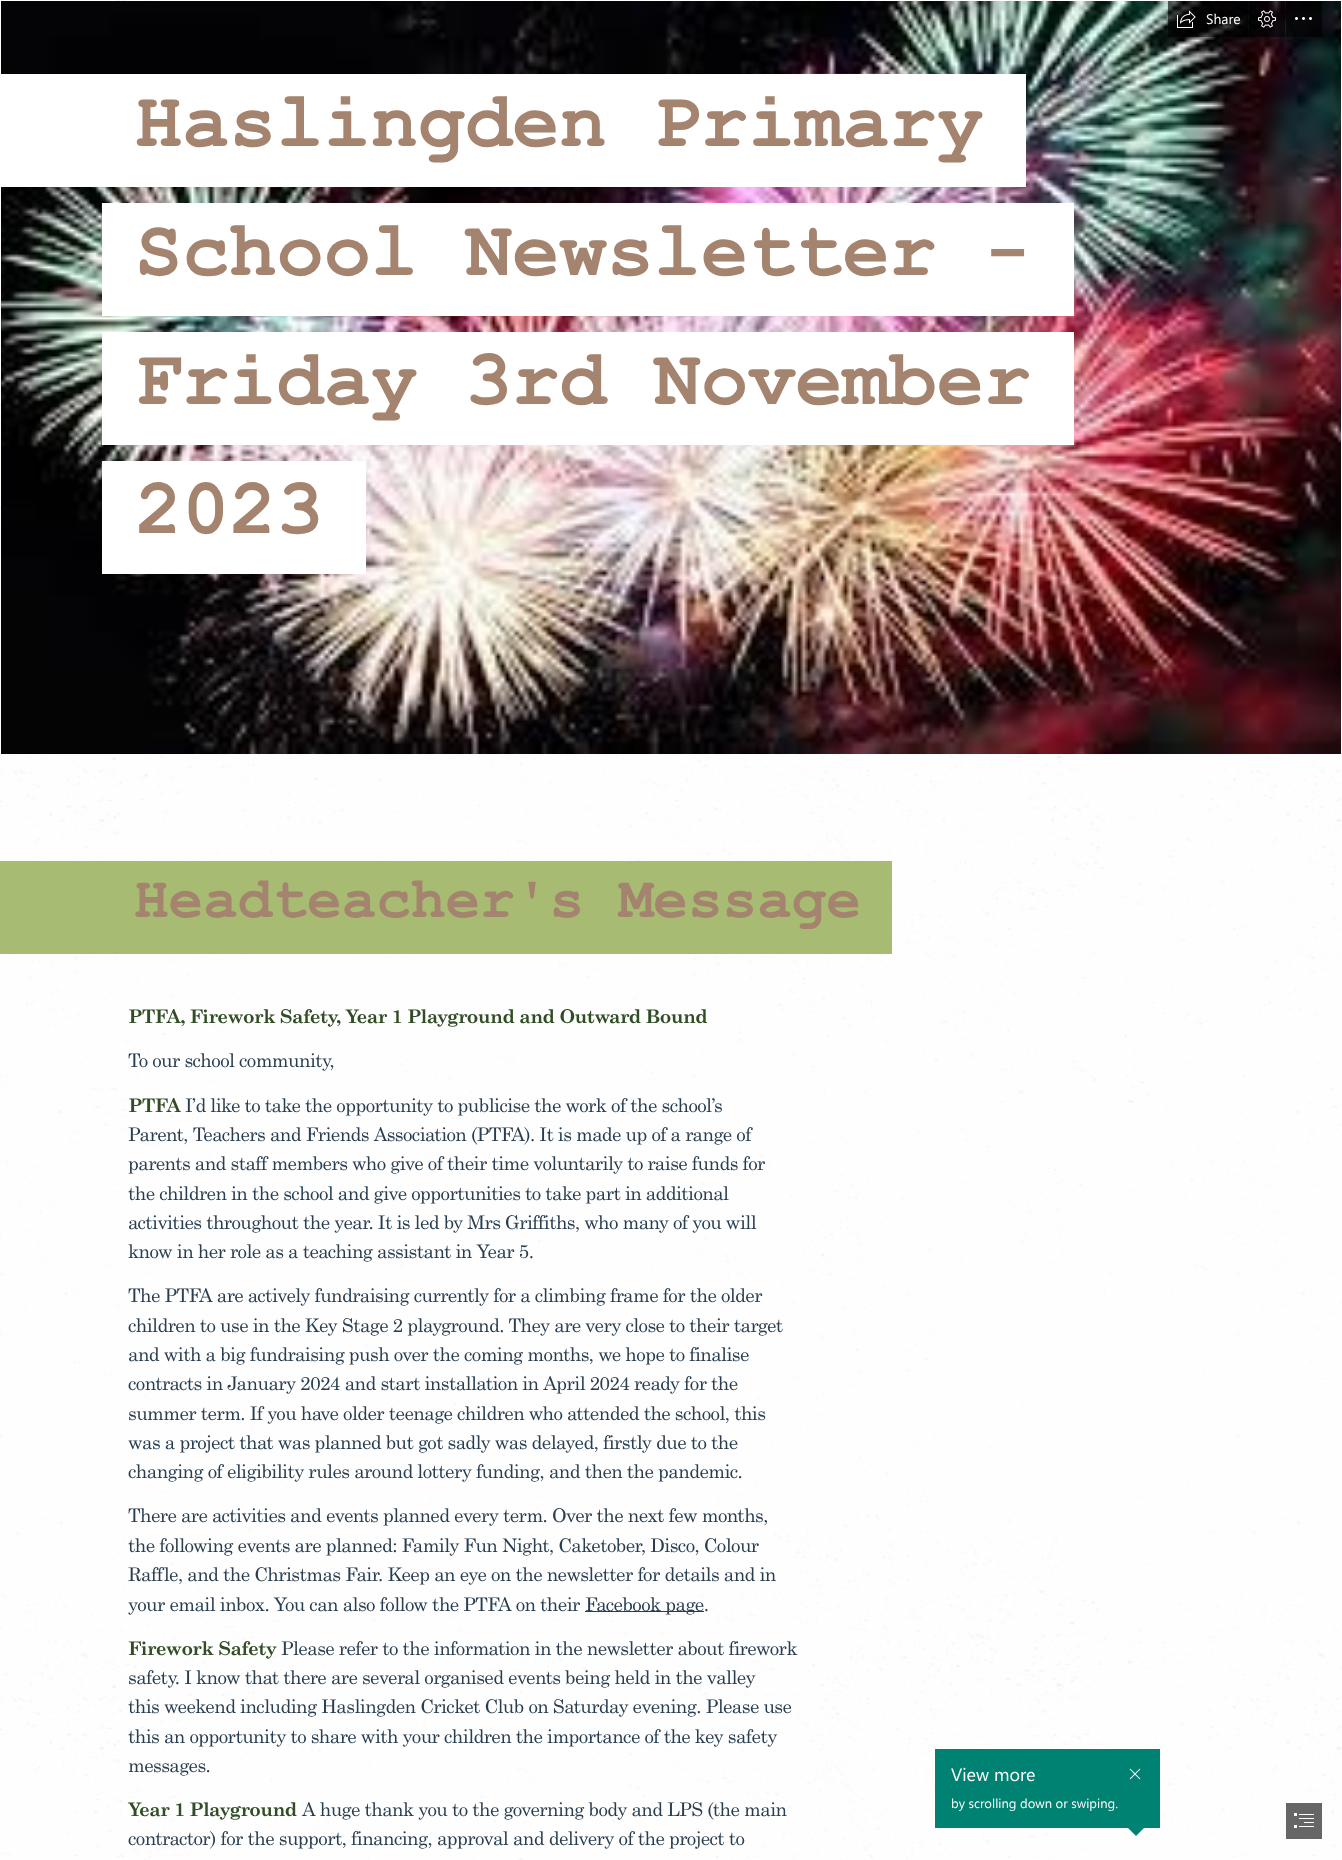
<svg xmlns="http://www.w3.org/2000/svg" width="1342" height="1860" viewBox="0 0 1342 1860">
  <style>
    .t1 { font: 14px Segoe UI; fill: #fff; }
    .t2 { font: bold 78.6px Courier New; fill: #a4846f; }
    .t3 { font: bold 57.7px Courier New; fill: #a4846f; }
    .t4 { font: bold 18.85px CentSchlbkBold; letter-spacing: -0.57px; fill: #324d26; }
    .t5 { font: 18.85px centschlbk; letter-spacing: -0.57px; fill: #283d50; }
    .t6 { font: 18px Segoe UI; fill: #fff; }
    .t7 { font: 13px Segoe UI; fill: #fff; }
  </style>
  <rect width="100%" height="100%" fill="#fff"/>
  <image x="0" y="0" width="1342" height="1860" href="images/4.png"/>
  <image x="1" y="1" width="1340" height="753" href="images/5.png"/>
  <rect x="1168" y="1" width="80" height="36" fill="#00000099"/>
  <image x="1177" y="10" width="19" height="18" href="images/1.png"/>
  <text x="1206" y="24" class="t1">Share</text>
  <rect x="1249" y="1" width="36" height="36" fill="#00000099"/>
  <image x="1258" y="10" width="18" height="18" href="images/2.png"/>
  <rect x="1286" y="1" width="36" height="36" fill="#00000099"/>
  <image x="1295" y="17" width="17" height="3" href="images/3.png"/>
  <rect x="1" y="74" width="1025" height="113" fill="#fff"/>
  <text x="135" y="146" class="t2">Haslingden Primary</text>
  <rect x="102" y="203" width="972" height="113" fill="#fff"/>
  <text x="135" y="275" class="t2">School Newsletter -</text>
  <rect x="102" y="332" width="972" height="113" fill="#fff"/>
  <text x="135" y="404" class="t2">Friday 3rd November</text>
  <rect x="102" y="461" width="264" height="113" fill="#fff"/>
  <text x="135" y="533" class="t2">2023</text>
  <rect x="0" y="861" width="892" height="93" fill="#a8bb73"/>
  <text x="134" y="917" class="t3">Headteacher's Message</text>
  <text x="128" y="1023" class="t4">PTFA, Firework Safety, Year 1 Playground and Outward Bound</text>
  <text x="128" y="1067" class="t5">To our school community,</text>
  <text x="128" y="1112" class="t4">PTFA</text>
  <text x="185" y="1112" class="t5">I’d like to take the opportunity to publicise the work of the school’s</text>
  <text x="128" y="1141" class="t5">Parent, Teachers and Friends Association (PTFA). It is made up of a range of</text>
  <text x="128" y="1170" class="t5">parents and staff members who give of their time voluntarily to raise funds for</text>
  <text x="128" y="1200" class="t5">the children in the school and give opportunities to take part in additional</text>
  <text x="128" y="1229" class="t5">activities throughout the year. It is led by Mrs Griffiths, who many of you will</text>
  <text x="128" y="1258" class="t5">know in her role as a teaching assistant in Year 5.</text>
  <text x="128" y="1302" class="t5">The PTFA are actively fundraising currently for a climbing frame for the older</text>
  <text x="128" y="1332" class="t5">children to use in the Key Stage 2 playground. They are very close to their target</text>
  <text x="128" y="1361" class="t5">and with a big fundraising push over the coming months, we hope to finalise</text>
  <text x="128" y="1390" class="t5">contracts in January 2024 and start installation in April 2024 ready for the</text>
  <text x="128" y="1420" class="t5">summer term. If you have older teenage children who attended the school, this</text>
  <text x="128" y="1449" class="t5">was a project that was planned but got sadly was delayed, firstly due to the</text>
  <text x="128" y="1478" class="t5">changing of eligibility rules around lottery funding, and then the pandemic.</text>
  <text x="128" y="1522" class="t5">There are activities and events planned every term. Over the next few months,</text>
  <text x="128" y="1552" class="t5">the following events are planned: Family Fun Night, Caketober, Disco, Colour</text>
  <text x="128" y="1581" class="t5">Raffle, and the Christmas Fair. Keep an eye on the newsletter for details and in</text>
  <text x="128" y="1611" class="t5">your email inbox. You can also follow the PTFA on their</text>
  <rect x="585" y="1611" width="119" height="1" fill="#283d50"/>
  <text x="585" y="1611" class="t5">Facebook page.</text>
  <text x="128" y="1655" class="t4">Firework Safety</text>
  <text x="281" y="1655" class="t5">Please refer to the information in the newsletter about firework</text>
  <text x="128" y="1684" class="t5">safety. I know that there are several organised events being held in the valley</text>
  <text x="128" y="1713" class="t5">this weekend including Haslingden Cricket Club on Saturday evening. Please use</text>
  <text x="128" y="1743" class="t5">this an opportunity to share with your children the importance of the key safety</text>
  <text x="128" y="1772" class="t5">messages.</text>
  <text x="128" y="1816" class="t4">Year 1 Playground</text>
  <text x="302" y="1816" class="t5">A huge thank you to the governing body and LPS (the main</text>
  <text x="128" y="1845" class="t5">contractor) for the support, financing, approval and delivery of the project to</text>
  <rect x="934" y="1748" width="227" height="81" fill="#008272" stroke="#fff" stroke-width="2"/>
  <text x="951" y="1781" class="t6">View more</text>
  <text x="951" y="1808" class="t7">by scrolling down or swiping.</text>
  <image x="1129" y="1768" width="12" height="12" href="images/6.png"/>
  <path d="M1126 1828H1146L1136 1838Z" fill="#fff"/>
  <path d="M1128 1828H1144L1136 1836Z" fill="#008272"/>
  <rect x="1286" y="1803" width="36" height="36" fill="#00000099"/>
  <image x="1294" y="1813" width="20" height="15" href="images/7.png"/>
</svg>
